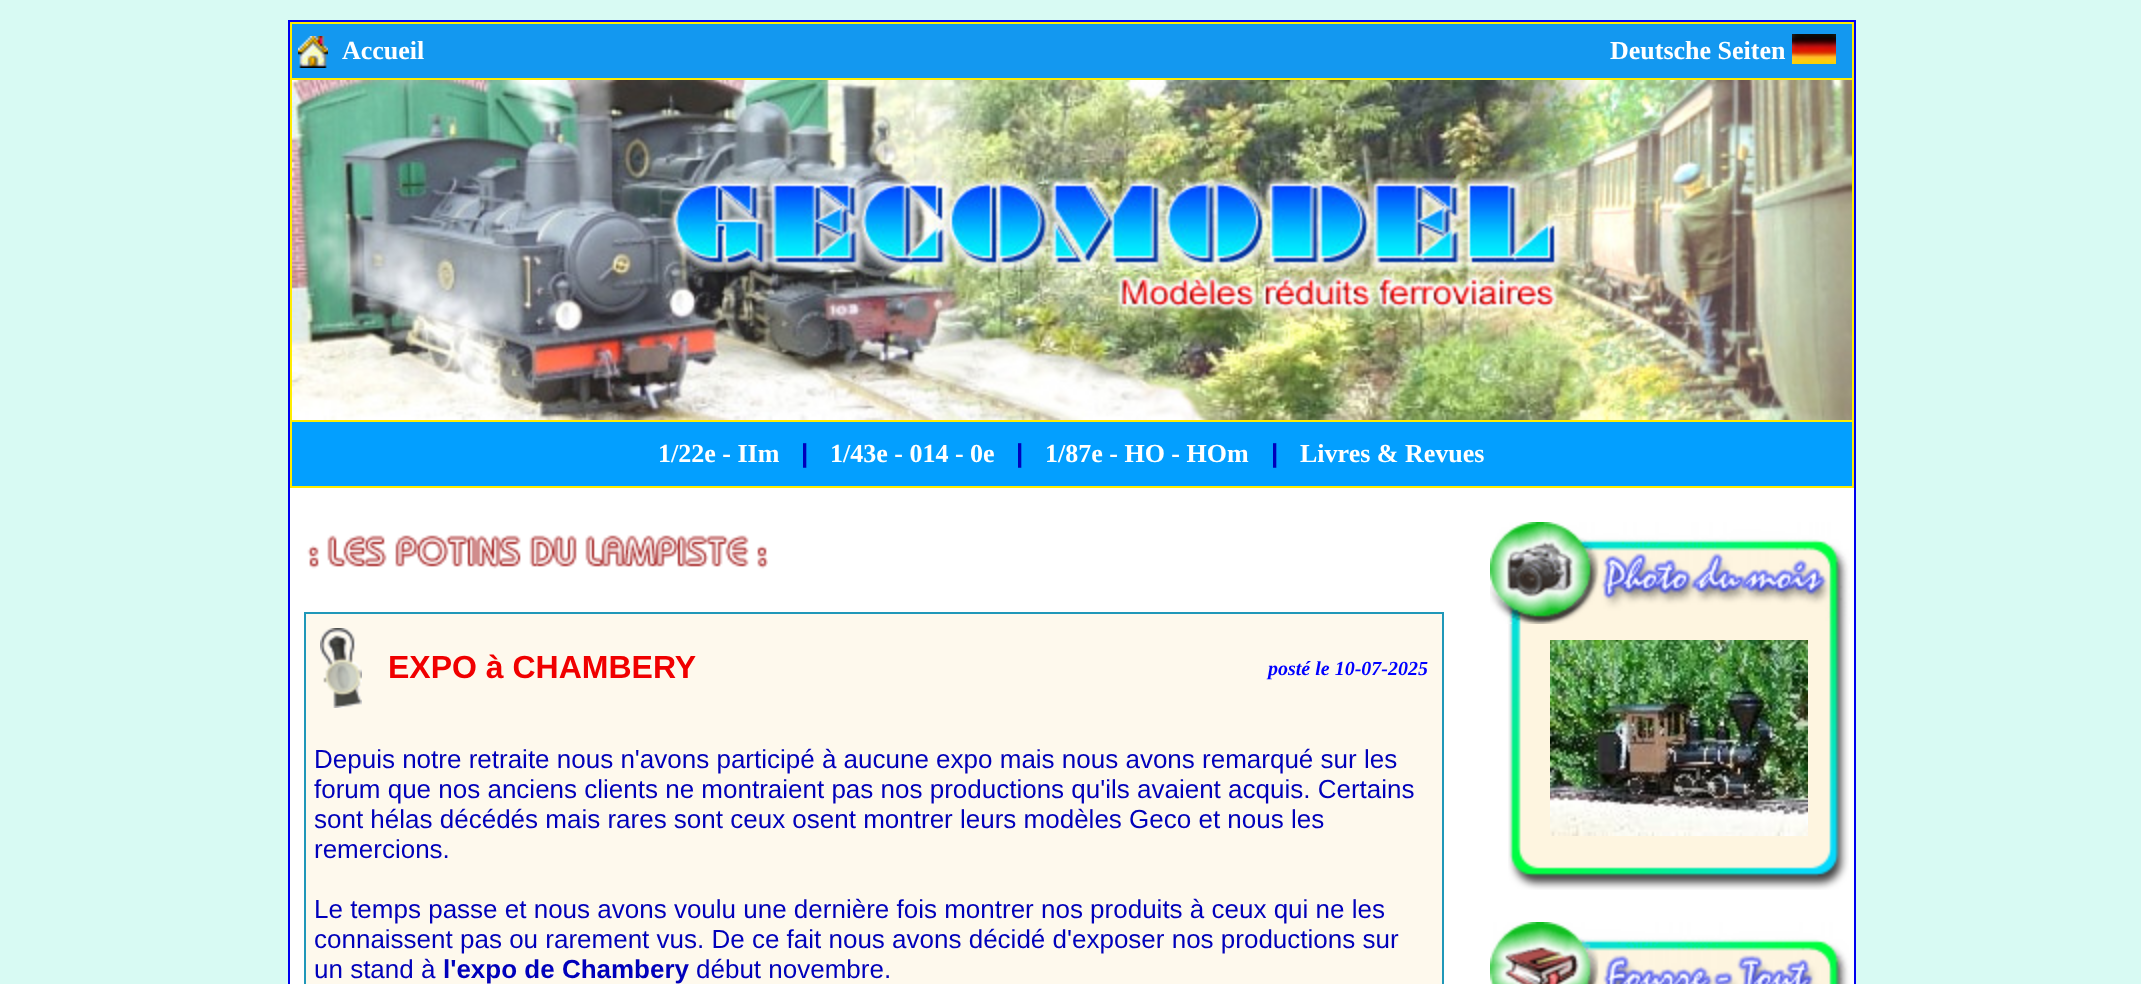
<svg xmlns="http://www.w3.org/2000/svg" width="2141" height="984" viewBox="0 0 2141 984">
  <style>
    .t1 { font: bold 26px Liberation Serif; fill: #fff; }
    .t2 { font: bold 26px Liberation Sans; fill: #00b; }
    .t3 { font: bold 32px Liberation Sans; fill: #f00000; }
    .t4 { font: italic bold 20px Liberation Serif; fill: #00f; }
    .t5 { font: 26px Liberation Sans; fill: #00b; }
  </style>
  <rect width="100%" height="100%" fill="#d8faf3"/>
  <rect x="288" y="20" width="1568" height="964" fill="#0000f0"/>
  <rect x="290" y="22" width="1564" height="466" fill="#ffed00"/>
  <rect x="292" y="24" width="1560" height="54" fill="#1398f0"/>
  <image x="298" y="36" width="30" height="32" href="images/1.png"/>
  <text x="342" y="59" class="t1">Accueil</text>
  <text x="1610" y="59" class="t1">Deutsche Seiten</text>
  <image x="1792" y="34" width="44" height="30" href="images/2.png"/>
  <image x="292" y="80" width="1560" height="340" href="images/3.png"/>
  <rect x="292" y="422" width="1560" height="64" fill="#039fff"/>
  <text x="658" y="462" class="t1">1/22e - IIm</text>
  <text x="801" y="462" class="t2">|</text>
  <text x="830" y="462" class="t1">1/43e - 014 - 0e</text>
  <text x="1016" y="462" class="t2">|</text>
  <text x="1045" y="462" class="t1">1/87e - HO - HOm</text>
  <text x="1271" y="462" class="t2">|</text>
  <text x="1300" y="462" class="t1">Livres &amp; Revues</text>
  <rect x="290" y="488" width="1564" height="496" fill="#fff"/>
  <image x="307" y="535" width="461" height="34" href="images/4.png"/>
  <rect x="304" y="612" width="1140" height="372" fill="#2098b9"/>
  <rect x="306" y="614" width="1136" height="370" fill="#fef9ed"/>
  <image x="320" y="628" width="42" height="80" href="images/5.png"/>
  <text x="388" y="678" class="t3">EXPO à CHAMBERY</text>
  <text x="1268" y="675" class="t4">posté le 10-07-2025</text>
  <text x="314" y="768" class="t5">Depuis notre retraite nous n'avons participé à aucune expo mais nous avons remarqué sur les</text>
  <text x="314" y="798" class="t5">forum que nos anciens clients ne montraient pas nos productions qu'ils avaient acquis. Certains</text>
  <text x="314" y="828" class="t5">sont hélas décédés mais rares sont ceux osent montrer leurs modèles Geco et nous les</text>
  <text x="314" y="858" class="t5">remercions.</text>
  <text x="314" y="918" class="t5">Le temps passe et nous avons voulu une dernière fois montrer nos produits à ceux qui ne les</text>
  <text x="314" y="948" class="t5">connaissent pas ou rarement vus. De ce fait nous avons décidé d'exposer nos productions sur</text>
  <text x="314" y="978" class="t5">un stand à</text>
  <text x="443" y="978" class="t2">l'expo de Chambery</text>
  <text x="696" y="978" class="t5">début novembre.</text>
  <image x="1490" y="522" width="360" height="102" href="images/6.png"/>
  <image x="1508" y="624" width="341" height="226" href="images/7.png"/>
  <image x="1550" y="640" width="258" height="196" href="images/8.png"/>
  <image x="1508" y="850" width="341" height="40" href="images/9.png"/>
  <image x="1490" y="922" width="360" height="62" href="images/10.png"/>
</svg>
